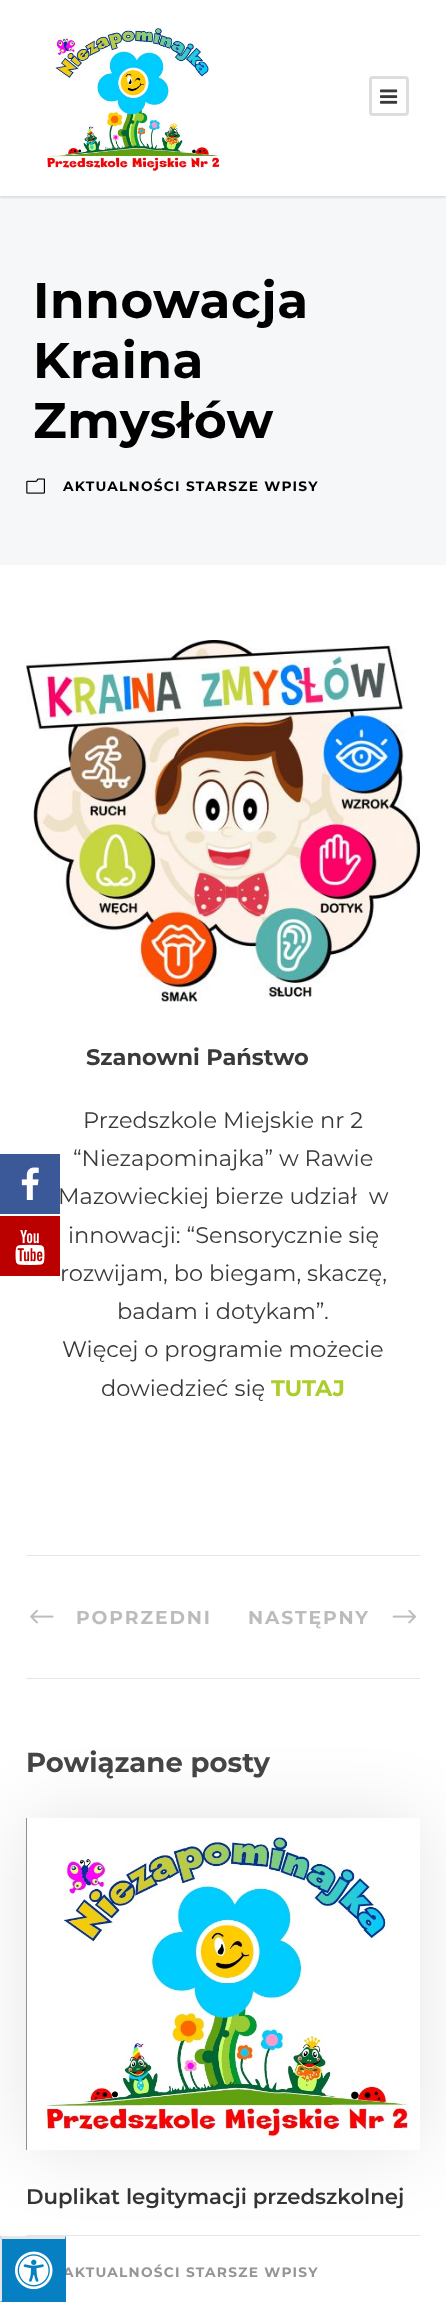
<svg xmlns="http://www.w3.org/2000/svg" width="446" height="2302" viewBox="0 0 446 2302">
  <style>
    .t1 { font: bold 50px Montserrat; letter-spacing: 0.6px; fill: #000; }
    .t2 { font: bold 13.75px Montserrat; letter-spacing: 1.25px; fill: #000; }
    .t3 { font: bold 22.5px Montserrat; fill: #3a3a3a; }
    .t4 { font: 22.5px Montserrat; fill: #3a3a3a; }
    .t5 { font: bold 22.5px Montserrat; fill: #abce2d; }
    .t6 { font: bold 18.75px Montserrat; letter-spacing: 1.9px; fill: #bcbcbc; }
    .t7 { font: bold 27.5px Montserrat; fill: #464646; }
    .t8 { font: 600 21.25px Montserrat; fill: #343434; }
    .t9 { font: bold 13.75px Montserrat; letter-spacing: 1.25px; fill: #959595; }
  </style>
  <defs>
    <clipPath id="clip1"><rect x="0" y="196" width="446" height="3"/></clipPath>
  </defs>
  <rect width="100%" height="100%" fill="#fff"/>
  <rect x="0" y="196" width="446" height="369" fill="#f6f7f9"/>
  <g clip-path="url(#clip1)">
    <rect x="0" y="1" width="446" height="197" fill="#0000001a" filter="blur(1px)"/>
  </g>
  <image x="47" y="27" width="173" height="145" href="images/1.png"/>
  <rect x="370.5" y="77.5" width="37" height="37" rx="2.5" fill="none" stroke="#ddd" stroke-width="3"/>
  <image x="380" y="89" width="18" height="15" href="images/2.png"/>
  <text x="33" y="318" class="t1">Innowacja</text>
  <text x="33" y="378" class="t1">Kraina</text>
  <text x="33" y="438" class="t1">Zmysłów</text>
  <image x="26" y="478" width="19" height="16" href="images/3.png"/>
  <text x="63" y="491" class="t2">AKTUALNOŚCI STARSZE WPISY</text>
  <image x="26" y="640" width="394" height="362" href="images/4.png"/>
  <text x="86" y="1065" class="t3">Szanowni Państwo</text>
  <text x="83" y="1128" class="t4">Przedszkole Miejskie nr 2</text>
  <text x="73" y="1166" class="t4">“Niezapominajka” w Rawie</text>
  <text x="58" y="1204" class="t4" xml:space="preserve">Mazowieckiej bierze udział  w</text>
  <text x="68" y="1243" class="t4">innowacji: “Sensorycznie się</text>
  <text x="60" y="1281" class="t4">rozwijam, bo biegam, skaczę,</text>
  <text x="117" y="1319" class="t4">badam i dotykam”.</text>
  <text x="62" y="1357" class="t4">Więcej o programie możecie</text>
  <text x="101" y="1396" class="t4">dowiedzieć się</text>
  <text x="271" y="1396" class="t5">TUTAJ</text>
  <rect x="26" y="1555" width="394" height="1" fill="#e6e6e6"/>
  <rect x="26" y="1678" width="394" height="1" fill="#e6e6e6"/>
  <image x="30" y="1609" width="24" height="15" href="images/5.png"/>
  <text x="76" y="1624" class="t6">POPRZEDNI</text>
  <text x="248" y="1624" class="t6">NASTĘPNY</text>
  <image x="392" y="1609" width="24" height="15" href="images/6.png"/>
  <text x="26" y="1772" class="t7">Powiązane posty</text>
  <rect x="26" y="2235" width="394" height="1" fill="#e6e6e6"/>
  <rect x="26" y="1818" width="394" height="332" fill="#0000001a" filter="blur(37.5px)"/>
  <rect x="26" y="1818" width="1" height="332" fill="#000"/>
  <image x="26" y="1818" width="394" height="332" href="images/7.png"/>
  <text x="26" y="2204" class="t8">Duplikat legitymacji przedszkolnej</text>
  <text x="63" y="2277" class="t9">AKTUALNOŚCI STARSZE WPISY</text>
  <rect x="0" y="1154" width="60" height="60" fill="#3b5998"/>
  <image x="21" y="1167" width="18" height="33" href="images/8.png"/>
  <rect x="0" y="1216" width="60" height="60" fill="#b00"/>
  <image x="15" y="1230" width="30" height="35" href="images/9.png"/>
  <rect x="0" y="2236" width="66" height="66" fill="#0780c3"/>
  <path d="M0 2236H66L65 2239H2Z" fill="#e6e6e6"/>
  <path d="M66 2236V2302L65 2301V2239Z" fill="#0780c3"/>
  <path d="M0 2302V2236L2 2239V2301Z" fill="#e6e6e6"/>
  <image x="15" y="2251" width="38" height="39" href="images/10.png"/>
</svg>
